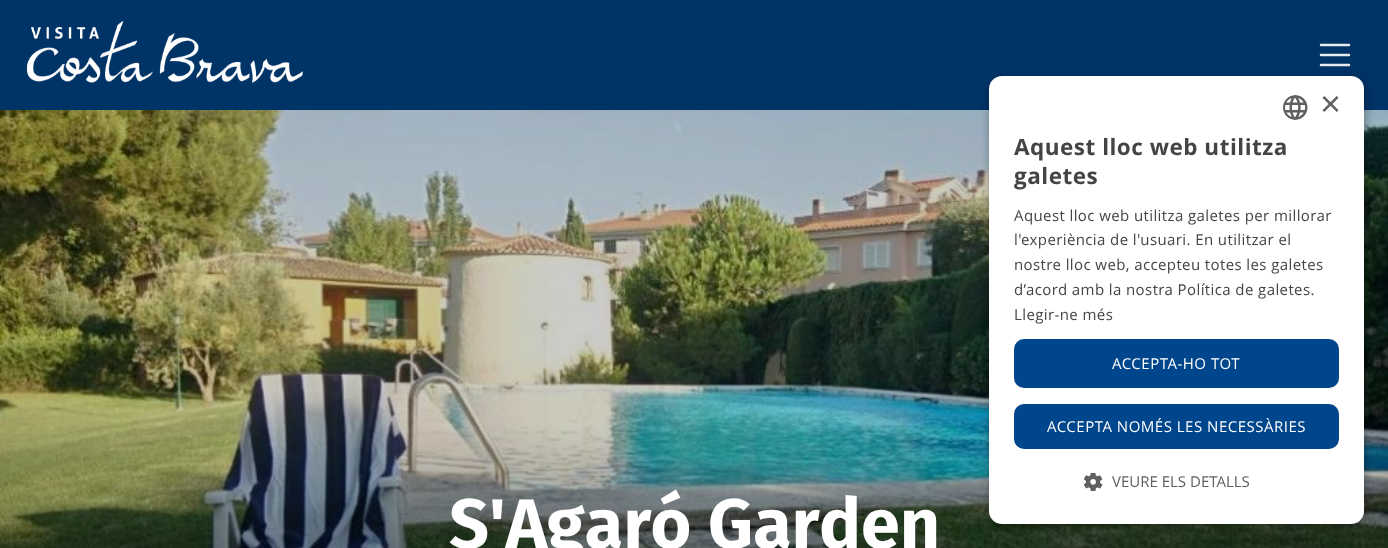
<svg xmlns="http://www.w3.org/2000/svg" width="1388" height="548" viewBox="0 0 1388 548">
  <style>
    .t1 { font: 36px Liberation Sans; fill: #606060; }
    .t2 { font: bold 22.5px Open Sans; letter-spacing: 0.5px; fill: #444; }
    .t3 { font: 15px Open Sans; letter-spacing: 0.4px; fill: #444; }
    .t4 { font: 15px Open Sans; letter-spacing: 0.5px; fill: #fff; }
    .t5 { font: 15px Open Sans; fill: #606060; }
    .t6 { font: bold 70px Fira Sans; fill: #fff; }
  </style>
  <rect width="100%" height="100%" fill="#fff"/>
  <rect x="0" y="0" width="1388" height="110" fill="#036"/>
  <image x="27" y="21" width="276" height="63" href="images/1.png"/>
  <path d="M1321 45H1349M1321 55H1349M1321 65H1349" fill="none" stroke="#e6ebf0" stroke-width="2.5" stroke-linecap="round"/>
  <image x="0" y="110" width="1388" height="438" href="images/4.png"/>
  <rect x="990" y="79" width="375" height="447" rx="13" fill="#00000059" filter="blur(5px)"/>
  <rect x="989" y="76" width="375" height="448" rx="13" fill="#fff"/>
  <image x="1283" y="95" width="25" height="25" href="images/2.png"/>
  <text x="1320" y="116" class="t1">×</text>
  <text x="1014" y="155" class="t2">Aquest lloc web utilitza</text>
  <text x="1014" y="184" class="t2">galetes</text>
  <text x="1014" y="221" class="t3">Aquest lloc web utilitza galetes per millorar</text>
  <text x="1014" y="245" class="t3">l'experiència de l'usuari. En utilitzar el</text>
  <text x="1014" y="270" class="t3">nostre lloc web, accepteu totes les galetes</text>
  <text x="1014" y="295" class="t3">d’acord amb la nostra Política de galetes.</text>
  <text x="1014" y="320" class="t3">Llegir-ne més</text>
  <rect x="1014" y="339" width="325" height="49" rx="10" fill="#00468d"/>
  <text x="1112" y="369" class="t4">ACCEPTA-HO TOT</text>
  <rect x="1014" y="404" width="325" height="45" rx="10" fill="#00468d"/>
  <text x="1047" y="432" class="t4">ACCEPTA NOMÉS LES NECESSÀRIES</text>
  <image x="1084" y="473" width="19" height="18" href="images/3.png"/>
  <text x="1112" y="487" class="t5">VEURE ELS DETALLS</text>
  <text x="449" y="548" class="t6">S'Agaró Garden</text>
</svg>
